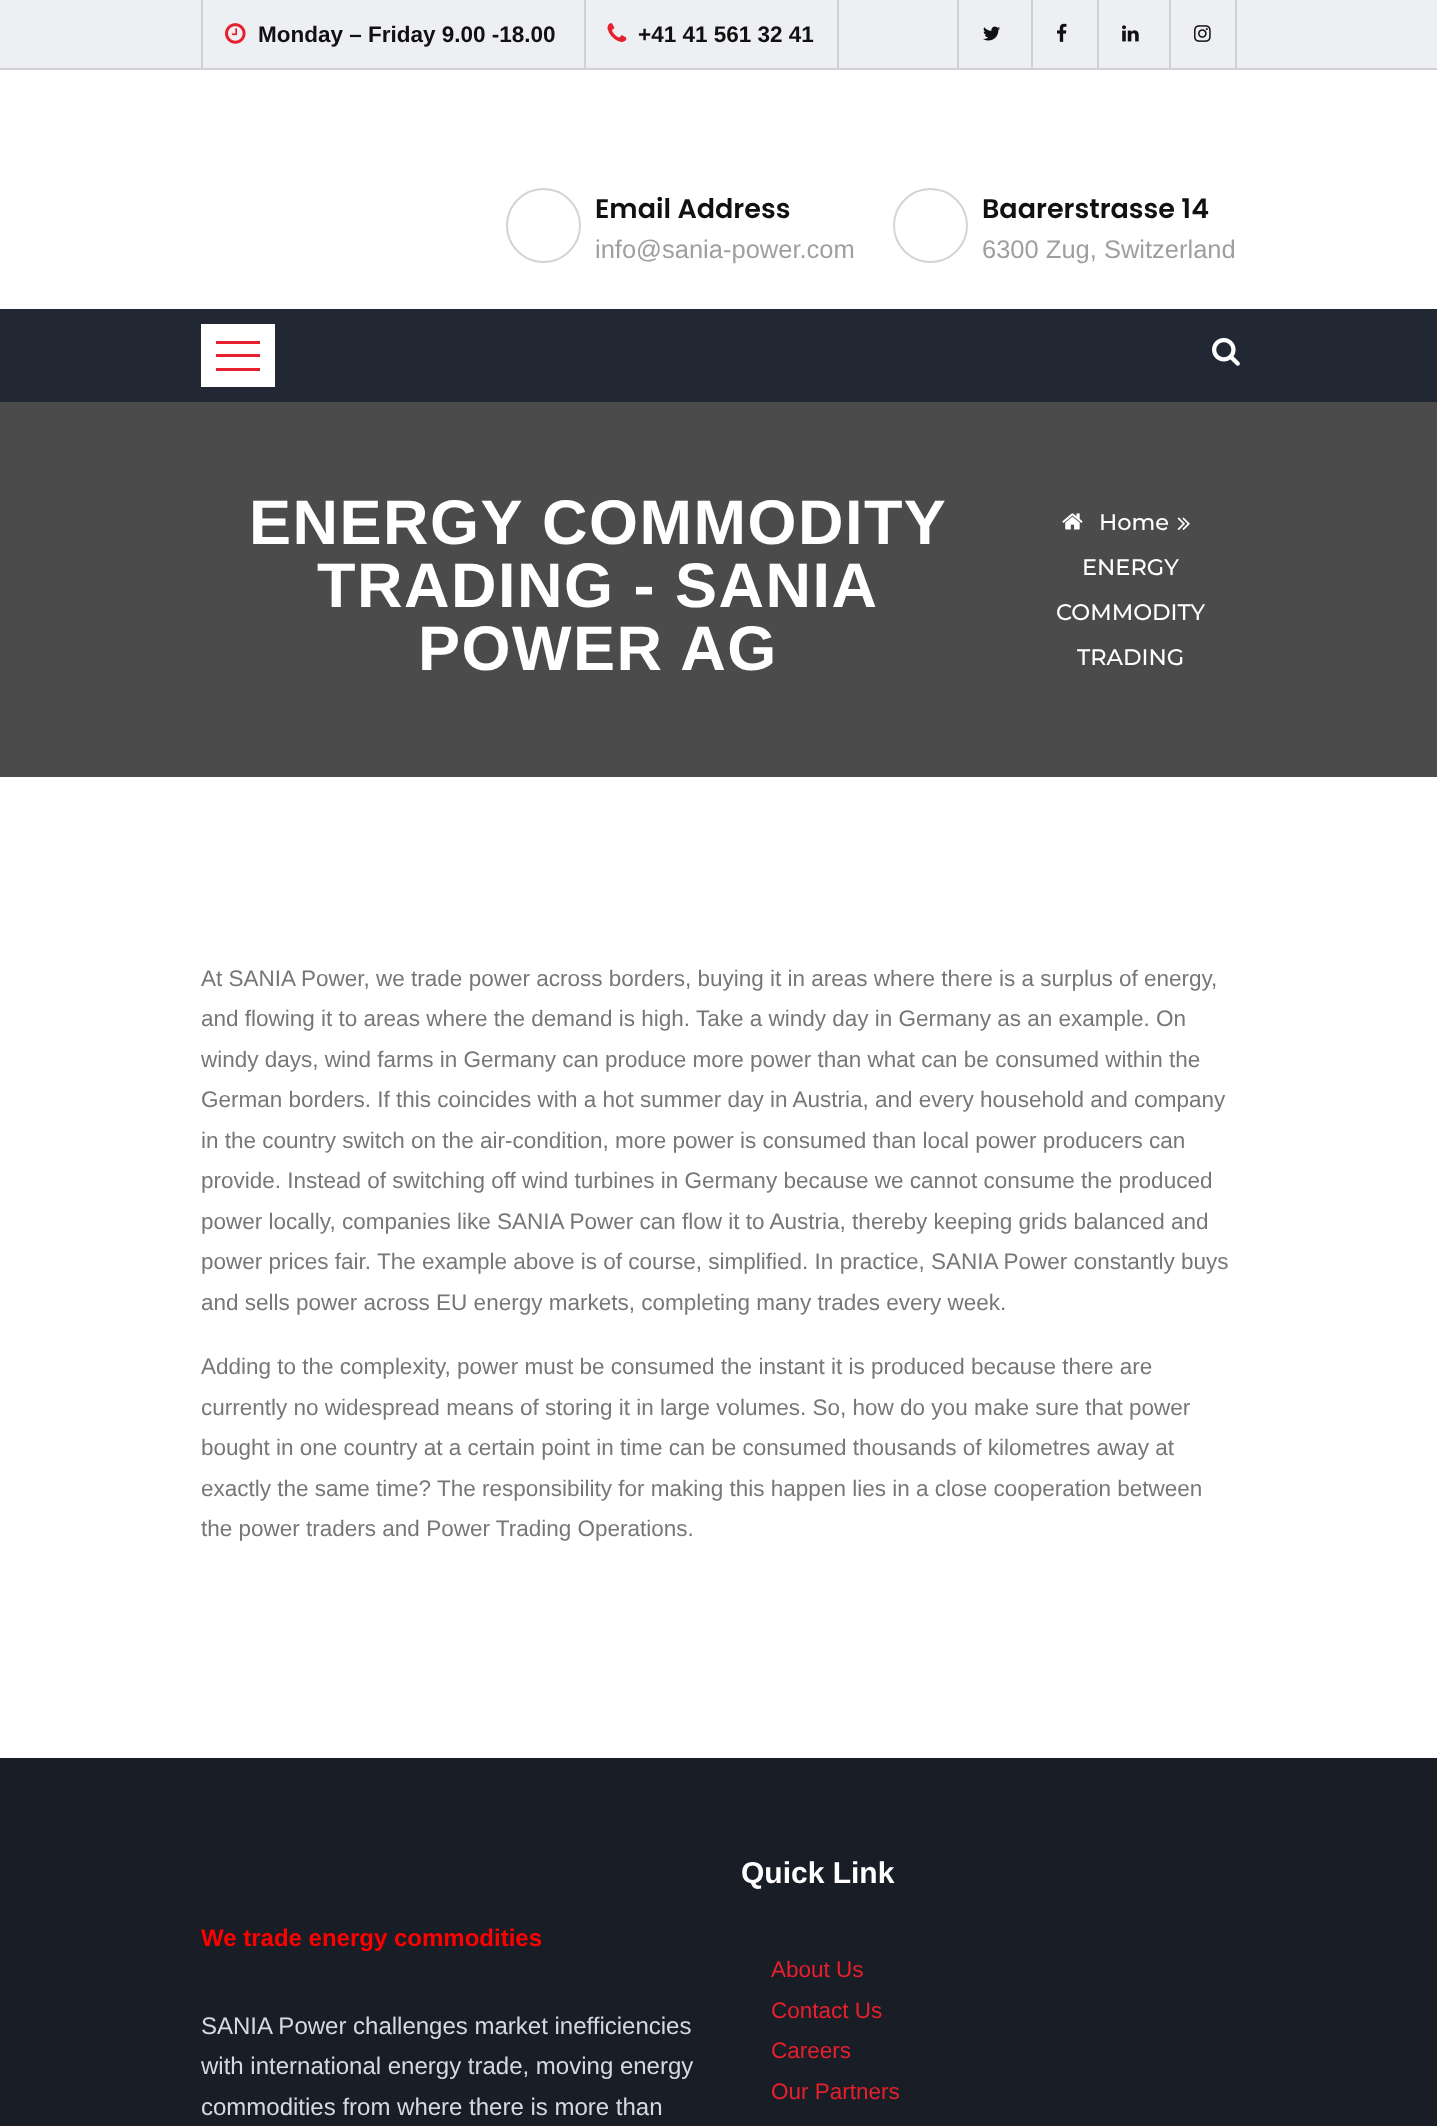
<svg xmlns="http://www.w3.org/2000/svg" width="1437" height="2126" viewBox="0 0 1437 2126">
  <style>
    .t1 { font: bold 22.5px Liberation Sans; fill: #111; }
    .t2 { font: 600 27px Poppins; fill: #111; }
    .t3 { font: 25.5px Liberation Sans; fill: #9f9f9f; }
    .t4 { font: bold 63px Liberation Sans; letter-spacing: 1.5px; fill: #fff; }
    .t5 { font: 500 22.5px Montserrat; fill: #fff; }
    .t6 { font: 22.5px Liberation Sans; fill: #777; }
    .t7 { font: bold 24px Liberation Sans; fill: #f00; }
    .t8 { font: 24px Liberation Sans; fill: #d4dae3; }
    .t9 { font: bold 30px Liberation Sans; fill: #fff; }
    .t10 { font: 22.5px Liberation Sans; fill: #e6202d; }
  </style>
  <rect width="100%" height="100%" fill="#fff"/>
  <rect x="0" y="0" width="1437" height="68" fill="#edeff2"/>
  <rect x="0" y="68" width="1437" height="2" fill="#d0d1d6"/>
  <rect x="201" y="0" width="2" height="68" fill="#d0d1d6"/>
  <image x="225" y="23" width="21" height="21" href="images/1.png"/>
  <text x="258" y="42" class="t1">Monday – Friday 9.00 -18.00</text>
  <rect x="837" y="0" width="2" height="68" fill="#d0d1d6"/>
  <rect x="584" y="0" width="2" height="68" fill="#d0d1d6"/>
  <image x="607" y="23" width="20" height="19" href="images/2.png"/>
  <text x="638" y="42" class="t1">+41 41 561 32 41</text>
  <rect x="957" y="0" width="2" height="68" fill="#d0d1d6"/>
  <image x="983" y="26" width="17" height="15" href="images/3.png"/>
  <rect x="1031" y="0" width="2" height="68" fill="#d0d1d6"/>
  <image x="1057" y="23" width="10" height="19" href="images/4.png"/>
  <rect x="1097" y="0" width="2" height="68" fill="#d0d1d6"/>
  <image x="1122" y="25" width="17" height="17" href="images/5.png"/>
  <rect x="1235" y="0" width="2" height="68" fill="#d0d1d6"/>
  <rect x="1169" y="0" width="2" height="68" fill="#d0d1d6"/>
  <image x="1194" y="25" width="17" height="17" href="images/6.png"/>
  <circle cx="543.5" cy="225.5" r="36.5" fill="none" stroke="#d3d4d8" stroke-width="2"/>
  <text x="595" y="218" class="t2">Email Address</text>
  <text x="595" y="258" class="t3">info@sania-power.com</text>
  <circle cx="930.5" cy="225.5" r="36.5" fill="none" stroke="#d3d4d8" stroke-width="2"/>
  <text x="982" y="218" class="t2">Baarerstrasse 14</text>
  <text x="982" y="258" class="t3">6300 Zug, Switzerland</text>
  <rect x="0" y="309" width="1437" height="93" fill="#212733"/>
  <rect x="201" y="324" width="74" height="63" fill="#fff"/>
  <rect x="216" y="341" width="44" height="3" fill="#e6202d"/>
  <rect x="216" y="354" width="44" height="3" fill="#e6202d"/>
  <rect x="216" y="368" width="44" height="3" fill="#e6202d"/>
  <image x="1212" y="337" width="28" height="29" href="images/7.png"/>
  <rect x="0" y="402" width="1437" height="375" fill="#4b4b4b"/>
  <text x="249" y="544" class="t4">ENERGY COMMODITY</text>
  <text x="317" y="607" class="t4">TRADING - SANIA</text>
  <text x="418" y="670" class="t4">POWER AG</text>
  <image x="1062" y="513" width="21" height="17" href="images/8.png"/>
  <text x="1099" y="530" class="t5">Home</text>
  <image x="1177" y="517" width="13" height="13" href="images/9.png"/>
  <text x="1082" y="575" class="t5">ENERGY</text>
  <text x="1056" y="620" class="t5">COMMODITY</text>
  <text x="1077" y="665" class="t5">TRADING</text>
  <text x="201" y="986" class="t6">At SANIA Power, we trade power across borders, buying it in areas where there is a surplus of energy,</text>
  <text x="201" y="1026" class="t6">and flowing it to areas where the demand is high. Take a windy day in Germany as an example. On</text>
  <text x="201" y="1067" class="t6">windy days, wind farms in Germany can produce more power than what can be consumed within the</text>
  <text x="201" y="1107" class="t6">German borders. If this coincides with a hot summer day in Austria, and every household and company</text>
  <text x="201" y="1148" class="t6">in the country switch on the air-condition, more power is consumed than local power producers can</text>
  <text x="201" y="1188" class="t6">provide. Instead of switching off wind turbines in Germany because we cannot consume the produced</text>
  <text x="201" y="1229" class="t6">power locally, companies like SANIA Power can flow it to Austria, thereby keeping grids balanced and</text>
  <text x="201" y="1269" class="t6">power prices fair. The example above is of course, simplified. In practice, SANIA Power constantly buys</text>
  <text x="201" y="1310" class="t6">and sells power across EU energy markets, completing many trades every week.</text>
  <text x="201" y="1374" class="t6">Adding to the complexity, power must be consumed the instant it is produced because there are</text>
  <text x="201" y="1415" class="t6">currently no widespread means of storing it in large volumes. So, how do you make sure that power</text>
  <text x="201" y="1455" class="t6">bought in one country at a certain point in time can be consumed thousands of kilometres away at</text>
  <text x="201" y="1496" class="t6">exactly the same time? The responsibility for making this happen lies in a close cooperation between</text>
  <text x="201" y="1536" class="t6">the power traders and Power Trading Operations.</text>
  <rect x="0" y="1758" width="1437" height="368" fill="#191d26"/>
  <text x="201" y="1946" class="t7">We trade energy commodities</text>
  <text x="201" y="2034" class="t8">SANIA Power challenges market inefficiencies</text>
  <text x="201" y="2074" class="t8">with international energy trade, moving energy</text>
  <text x="201" y="2115" class="t8">commodities from where there is more than</text>
  <text x="741" y="1883" class="t9">Quick Link</text>
  <text x="771" y="1977" class="t10">About Us</text>
  <text x="771" y="2018" class="t10">Contact Us</text>
  <text x="771" y="2058" class="t10">Careers</text>
  <text x="771" y="2099" class="t10">Our Partners</text>
</svg>
